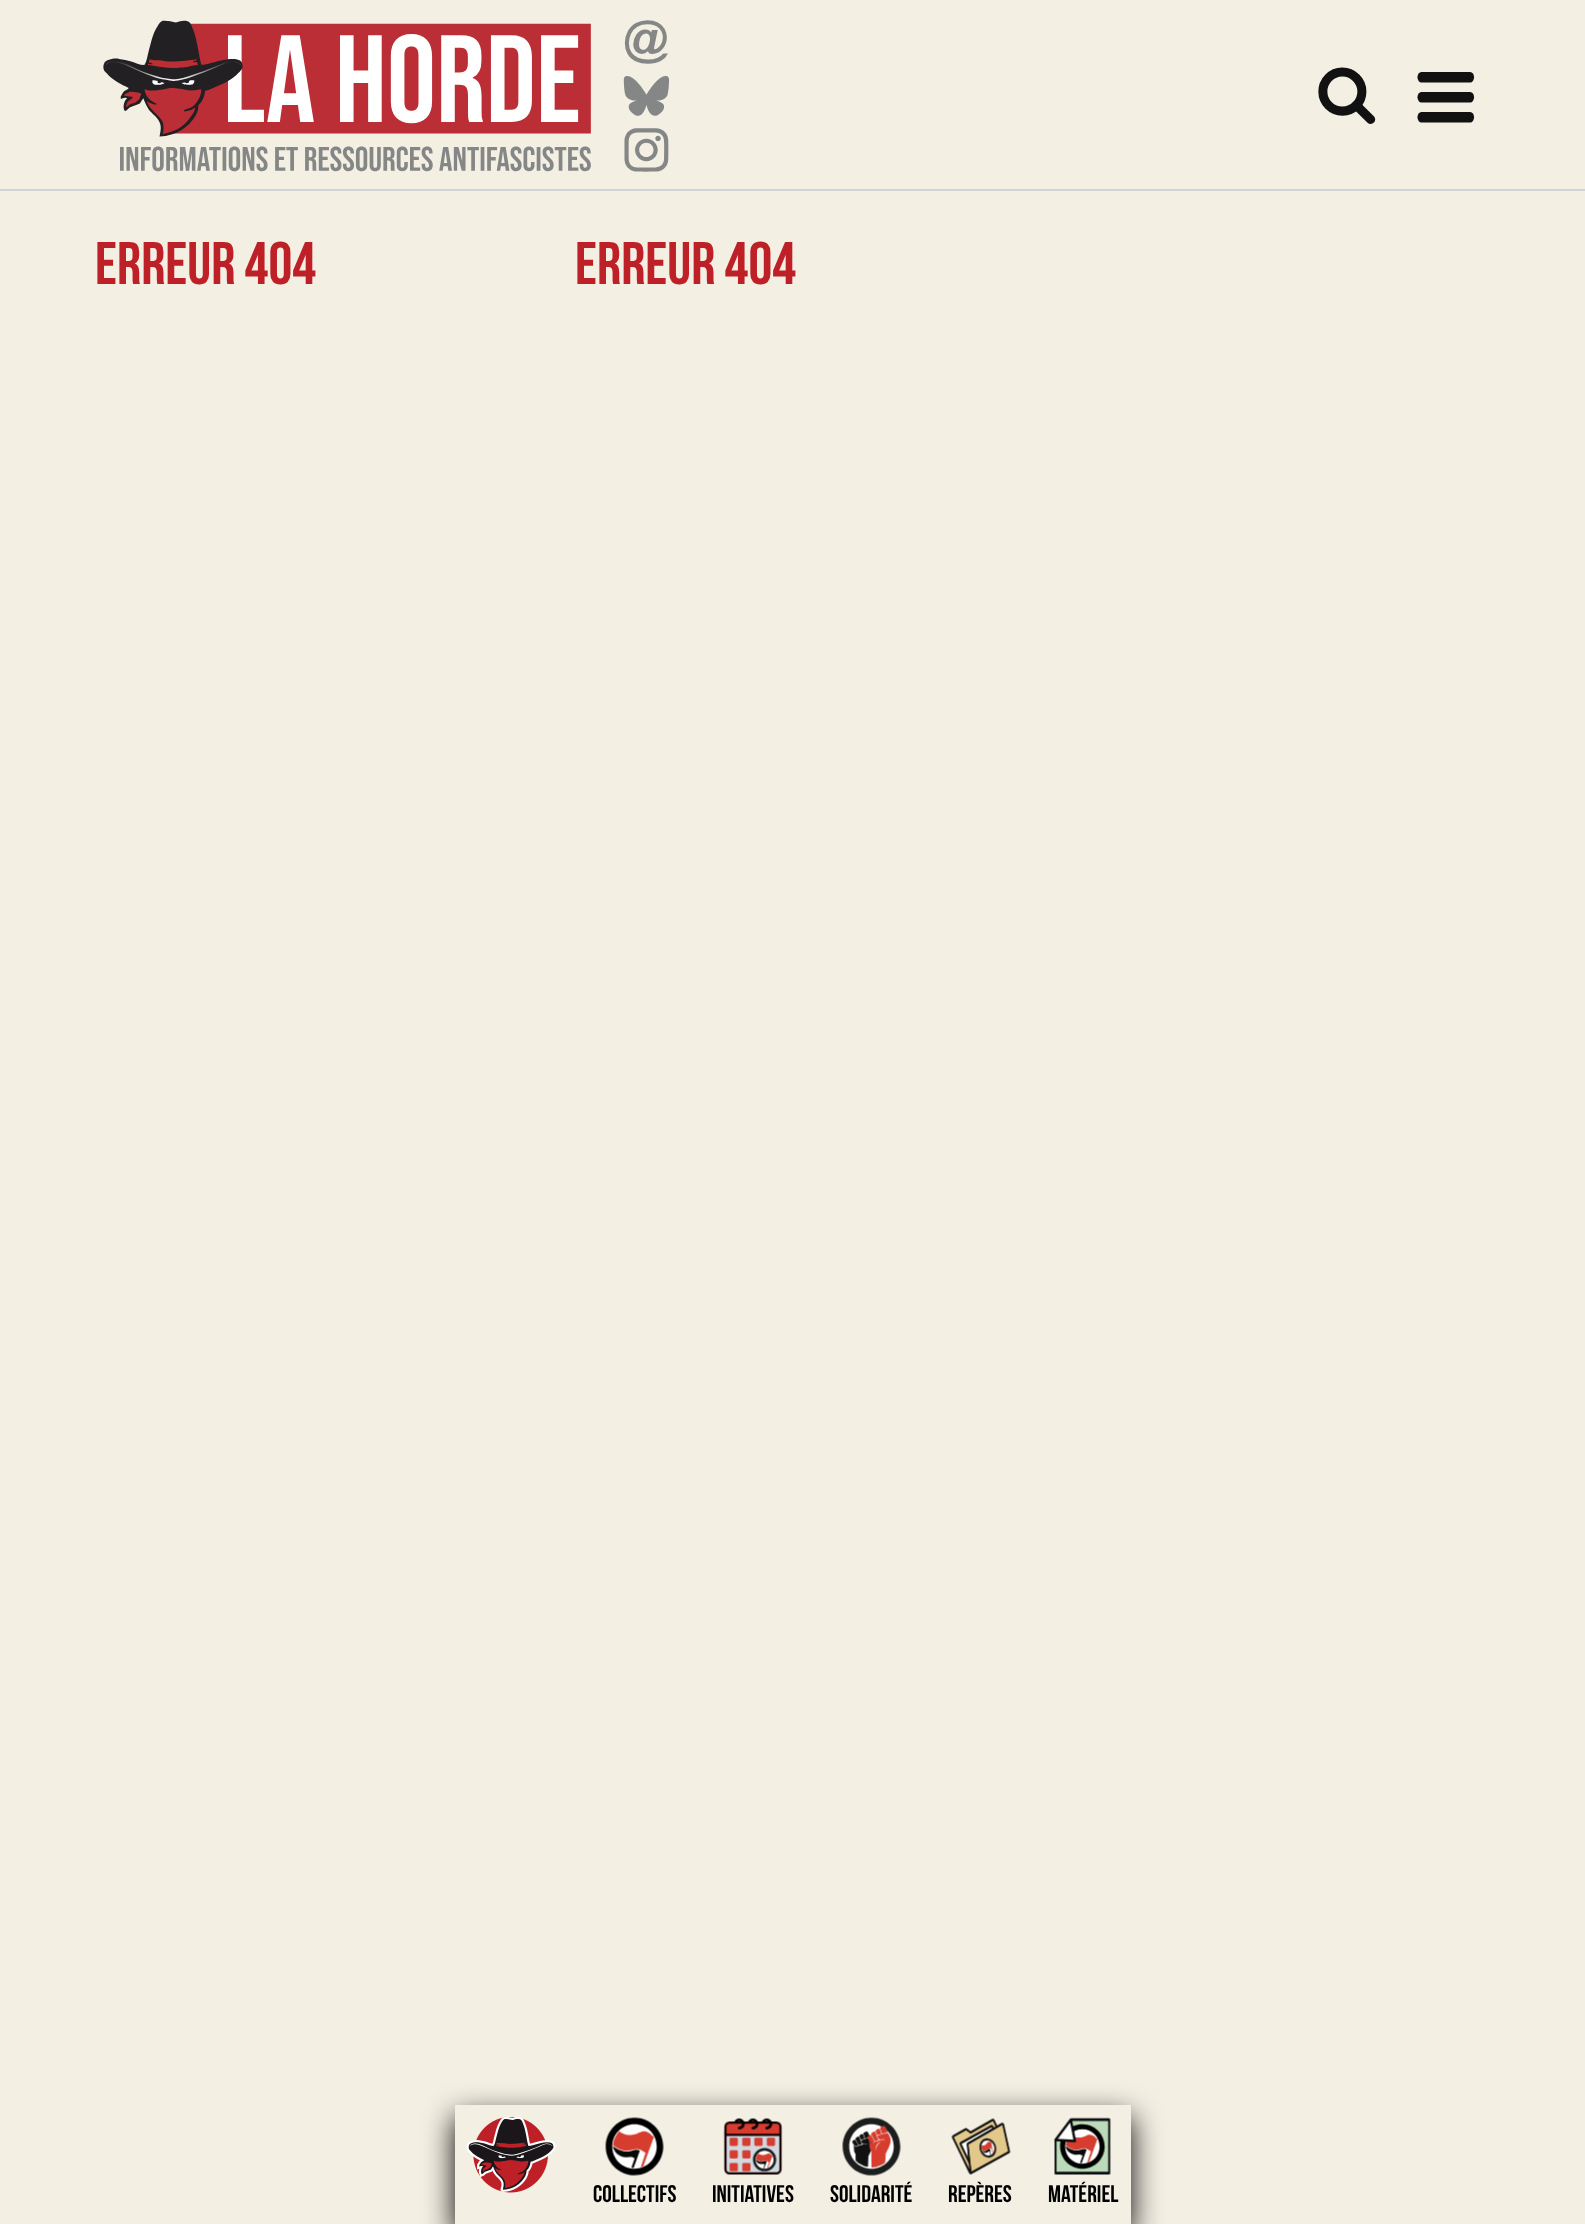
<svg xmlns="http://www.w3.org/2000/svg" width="1585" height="2224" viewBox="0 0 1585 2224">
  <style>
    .t1 { font: 60px Bebas Neue; fill: #be2028; }
    .t2 { font: 24px Bebas Neue; fill: #000; }
  </style>
  <defs>
    <clipPath id="clip1"><path d="M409 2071H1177V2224H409ZM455 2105H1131V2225H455Z" clip-rule="evenodd"/></clipPath>
  </defs>
  <rect width="100%" height="100%" fill="#f3efe3"/>
  <text x="95" y="284" class="t1">Erreur 404</text>
  <text x="575" y="284" class="t1">Erreur 404</text>
  <rect x="0" y="189" width="1585" height="2" fill="#ced4da"/>
  <image x="1417" y="72" width="58" height="51" href="images/1.png"/>
  <image x="103" y="20" width="488" height="152" href="images/2.png"/>
  <image x="624" y="20" width="44" height="44" href="images/3.png"/>
  <image x="623" y="76" width="46" height="40" href="images/4.png"/>
  <image x="624" y="128" width="45" height="44" href="images/5.png"/>
  <image x="1318" y="67" width="58" height="57" href="images/6.png"/>
  <g clip-path="url(#clip1)">
    <rect x="455" y="2117" width="676" height="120" fill="#000" filter="blur(15px)"/>
  </g>
  <image x="467" y="2117" width="89" height="76" href="images/7.png"/>
  <image x="605" y="2117" width="59" height="59" href="images/8.png"/>
  <text x="593" y="2202" class="t2">Collectifs</text>
  <image x="723" y="2118" width="60" height="57" href="images/9.png"/>
  <text x="712" y="2202" class="t2">Initiatives</text>
  <image x="842" y="2117" width="59" height="59" href="images/10.png"/>
  <text x="830" y="2202" class="t2">Solidarité</text>
  <image x="951" y="2118" width="60" height="57" href="images/11.png"/>
  <text x="948" y="2202" class="t2">Repères</text>
  <image x="1054" y="2117" width="57" height="58" href="images/12.png"/>
  <text x="1048" y="2202" class="t2">Matériel</text>
</svg>
